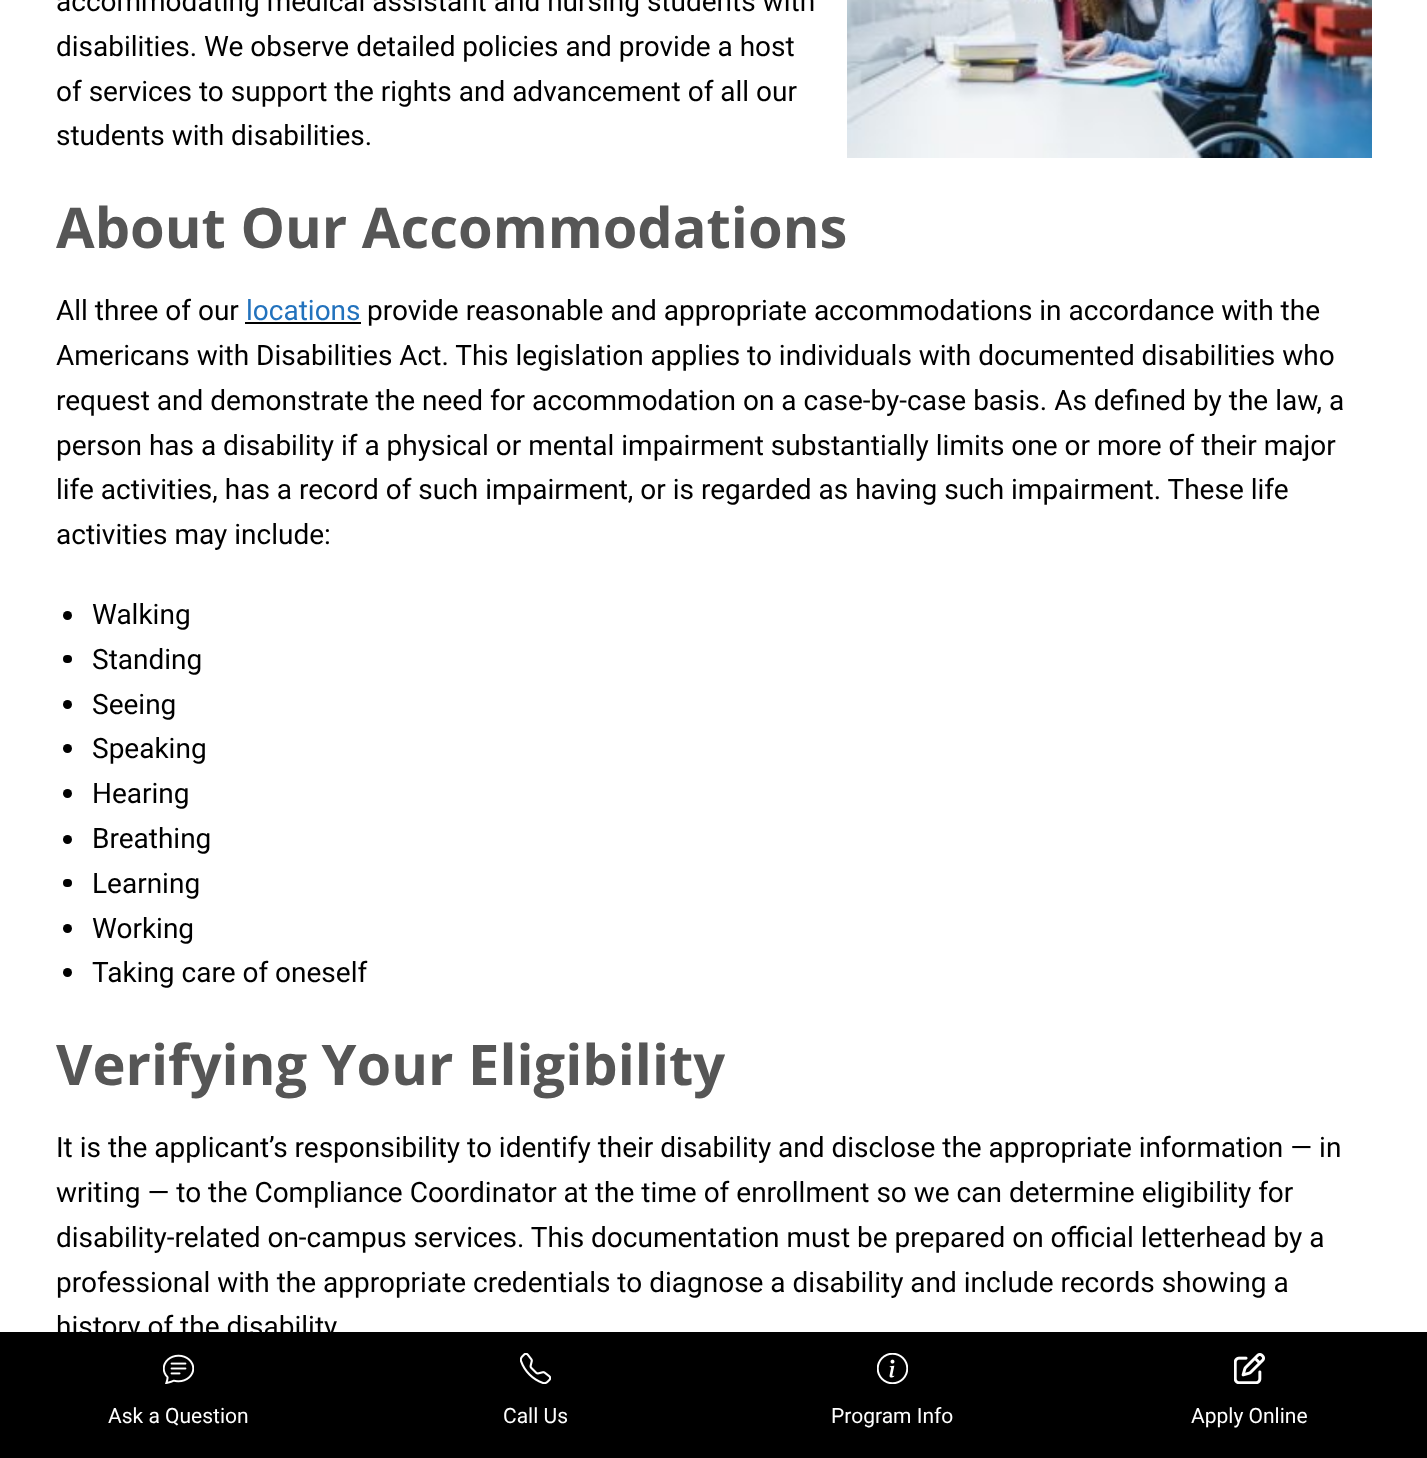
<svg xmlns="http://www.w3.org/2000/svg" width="1427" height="1458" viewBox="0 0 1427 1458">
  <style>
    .t1 { font: 28px Roboto; fill: #000; }
    .t2 { font: bold 56px Open Sans; fill: #565656; }
    .t3 { font: 28px Roboto; fill: #2272bd; }
    .t4 { font: 21px Roboto; fill: #fff; }
  </style>
  <rect width="100%" height="100%" fill="#fff"/>
  <text x="56" y="11" class="t1">accommodating medical assistant and nursing students with</text>
  <text x="56" y="56" class="t1">disabilities. We observe detailed policies and provide a host</text>
  <text x="56" y="101" class="t1">of services to support the rights and advancement of all our</text>
  <text x="56" y="145" class="t1">students with disabilities.</text>
  <image x="847" y="0" width="525" height="158" href="images/1.png"/>
  <text x="56" y="248" class="t2">About Our Accommodations</text>
  <text x="56" y="320" class="t1">All three of our</text>
  <text x="246" y="320" class="t3">locations</text>
  <rect x="245" y="322" width="116" height="2" fill="#000"/>
  <text x="367" y="320" class="t1">provide reasonable and appropriate accommodations in accordance with the</text>
  <text x="56" y="365" class="t1">Americans with Disabilities Act. This legislation applies to individuals with documented disabilities who</text>
  <text x="56" y="410" class="t1">request and demonstrate the need for accommodation on a case-by-case basis. As defined by the law, a</text>
  <text x="56" y="455" class="t1">person has a disability if a physical or mental impairment substantially limits one or more of their major</text>
  <text x="56" y="499" class="t1">life activities, has a record of such impairment, or is regarded as having such impairment. These life</text>
  <text x="56" y="544" class="t1">activities may include:</text>
  <circle cx="67.5" cy="615.5" r="4.5" fill="#000"/>
  <text x="92" y="624" class="t1">Walking</text>
  <rect x="63" y="655" width="9" height="8" rx="4" fill="#000"/>
  <text x="92" y="669" class="t1">Standing</text>
  <circle cx="67.5" cy="704.5" r="4.5" fill="#000"/>
  <text x="92" y="714" class="t1">Seeing</text>
  <circle cx="67.5" cy="748.5" r="4.5" fill="#000"/>
  <text x="92" y="758" class="t1">Speaking</text>
  <circle cx="67.5" cy="793.5" r="4.5" fill="#000"/>
  <text x="92" y="803" class="t1">Hearing</text>
  <circle cx="67.5" cy="839.5" r="4.5" fill="#000"/>
  <text x="92" y="848" class="t1">Breathing</text>
  <rect x="63" y="879" width="9" height="8" rx="4" fill="#000"/>
  <text x="92" y="893" class="t1">Learning</text>
  <circle cx="67.5" cy="928.5" r="4.5" fill="#000"/>
  <text x="92" y="938" class="t1">Working</text>
  <circle cx="67.5" cy="972.5" r="4.5" fill="#000"/>
  <text x="92" y="982" class="t1">Taking care of oneself</text>
  <text x="56" y="1085" class="t2">Verifying Your Eligibility</text>
  <text x="56" y="1157" class="t1">It is the applicant’s responsibility to identify their disability and disclose the appropriate information — in</text>
  <text x="56" y="1202" class="t1">writing — to the Compliance Coordinator at the time of enrollment so we can determine eligibility for</text>
  <text x="56" y="1247" class="t1">disability-related on-campus services. This documentation must be prepared on official letterhead by a</text>
  <text x="56" y="1292" class="t1">professional with the appropriate credentials to diagnose a disability and include records showing a</text>
  <text x="56" y="1336" class="t1">history of the disability.</text>
  <rect x="0" y="1332" width="1427" height="126" fill="#000"/>
  <image x="163" y="1354" width="31" height="30" href="images/2.png"/>
  <text x="108" y="1423" class="t4">Ask a Question</text>
  <image x="520" y="1353" width="31" height="31" href="images/3.png"/>
  <text x="503" y="1423" class="t4">Call Us</text>
  <image x="877" y="1353" width="31" height="31" href="images/4.png"/>
  <text x="831" y="1423" class="t4">Program Info</text>
  <image x="1234" y="1353" width="31" height="31" href="images/5.png"/>
  <text x="1191" y="1423" class="t4">Apply Online</text>
</svg>
